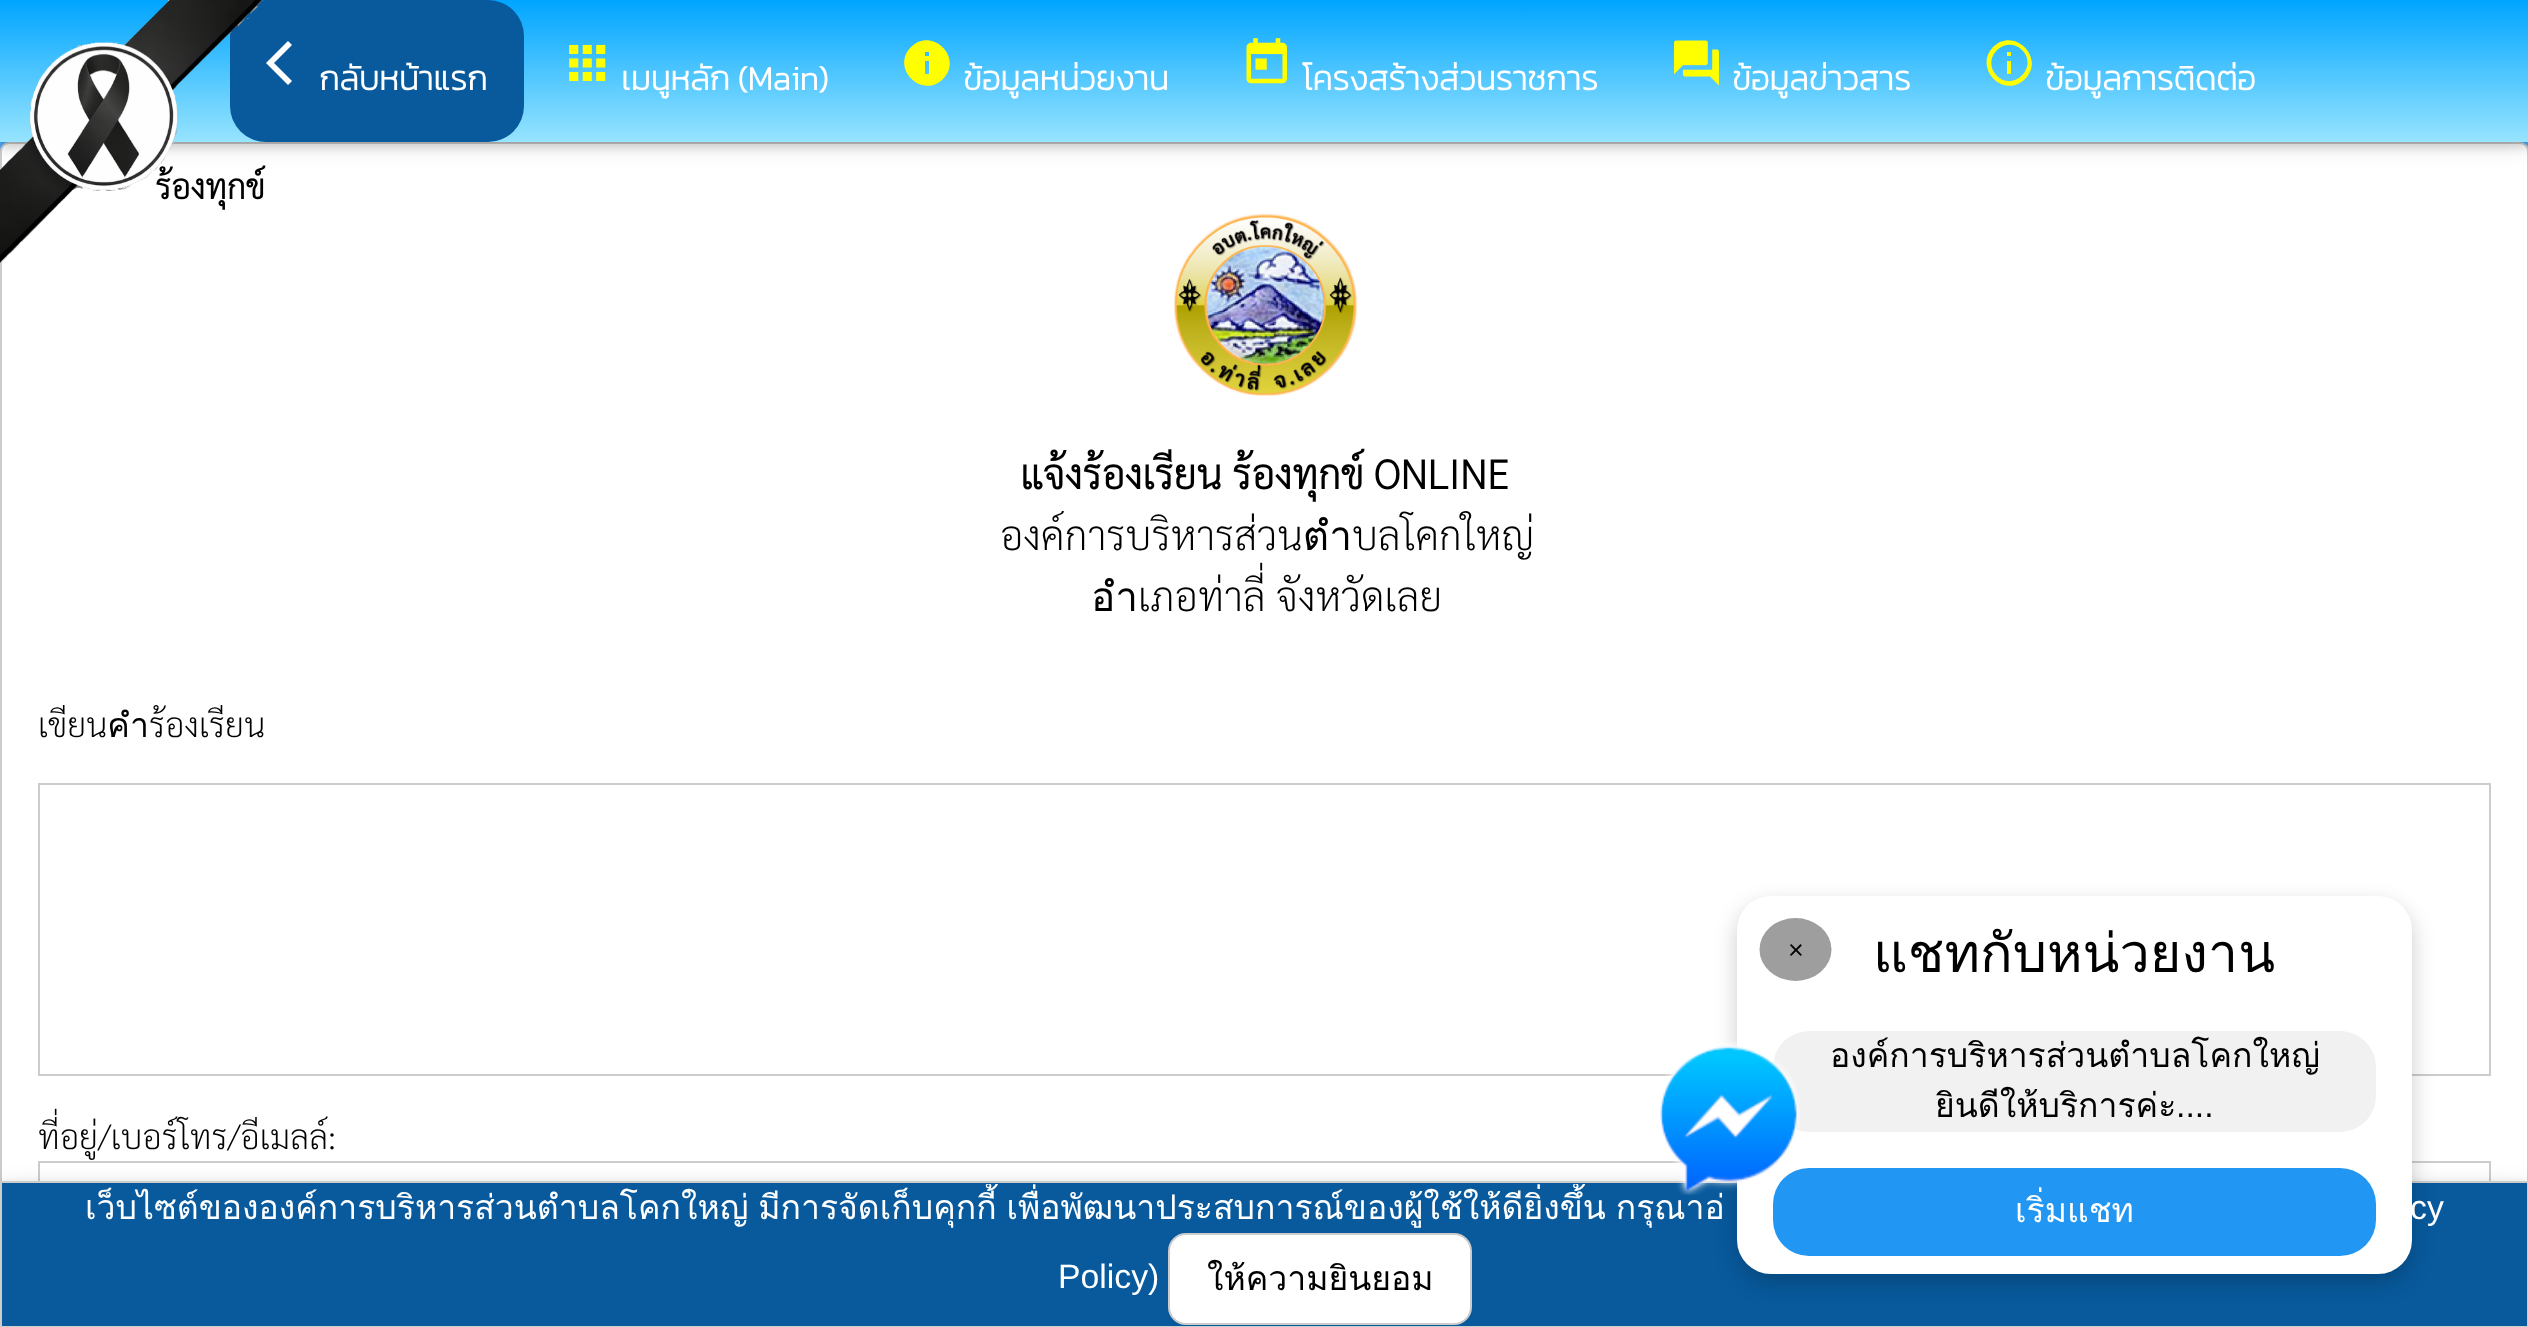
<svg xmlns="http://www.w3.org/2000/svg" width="2528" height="1327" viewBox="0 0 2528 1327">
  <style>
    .t1 { font: bold 33.75px Sarabun; fill: #000; }
    .t2 { font: bold 33.75px Kanit; fill: #fff; }
    .t3 { font: bold 40.5px Sarabun; fill: #000; }
    .t4 { font: 200 40.5px Sarabun; fill: #000; }
    .t5 { font: 200 33.75px Sarabun; fill: #000; }
    .t6 { font: 27px Liberation Sans; fill: #000; }
    .t7 { font: 54px Loma; fill: #000; }
    .t8 { font: 33.75px Loma; fill: #000; }
    .t9 { font: 33.75px Liberation Sans; fill: #000; }
    .t10 { font: 33.75px Loma; fill: #fff; }
    .t11 { font: 33.75px Liberation Sans; fill: #fff; }
  </style>
  <defs>
    <linearGradient id="g1" gradientUnits="userSpaceOnUse" x1="1265" y1="0" x2="1265" y2="142"><stop offset="0" stop-color="#00a5ff"/><stop offset="1" stop-color="#97e4fe"/></linearGradient>
    <clipPath id="clip1"><rect x="2" y="1184" width="2525" height="141"/></clipPath>
  </defs>
  <rect width="100%" height="100%" fill="#4daaf6"/>
  <rect x="1" y="143" width="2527" height="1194" rx="8" fill="#fff" stroke="#ccc" stroke-width="2"/>
  <rect x="0" y="5" width="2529" height="141" fill="#0000001f" filter="blur(11px)"/>
  <rect x="0" y="5" width="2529" height="141" fill="#00000029" filter="blur(5.5px)"/>
  <rect x="0" y="0" width="2528" height="142" fill="url(#g1)"/>
  <rect x="230" y="0" width="294" height="142" rx="36" fill="#085a9d"/>
  <text x="155" y="199" class="t1">ร้องทุกข์</text>
  <image x="0" y="0" width="264" height="263" href="images/1.png"/>
  <path d="M292 45L274 63L292 81L288 85L266 63L288 41Z" fill="#fff"/>
  <text x="319" y="90" class="t2">กลับหน้าแรก</text>
  <image x="569" y="44" width="37" height="38" href="images/2.png"/>
  <text x="621" y="90" class="t2">เมนูหลัก (Main)</text>
  <path d="M929 56V52H925V56ZM929 74V61H925V74ZM911 47C932 26 964 58 943 79C922 100 890 68 911 47Z" fill="#ff0"/>
  <text x="963" y="90" class="t2">ข้อมูลหน่วยงาน</text>
  <image x="1246" y="38" width="41" height="46" href="images/3.png"/>
  <text x="1302" y="90" class="t2">โครงสร้างส่วนราชการ</text>
  <image x="1674" y="40" width="45" height="46" href="images/4.png"/>
  <text x="1732" y="90" class="t2">ข้อมูลข่าวสาร</text>
  <path d="M2007 56V52H2011V56ZM1997 76C2013 92 2039 67 2022 50C2005 34 1980 59 1997 76ZM1993 47C2014 26 2046 58 2025 79C2004 100 1973 68 1993 47ZM2007 74V61H2011V74Z" fill="#ff0"/>
  <text x="2045" y="90" class="t2">ข้อมูลการติดต่อ</text>
  <image x="1173" y="213" width="185" height="183" href="images/5.png"/>
  <text x="1020" y="489" class="t3">แจ้งร้องเรียน ร้องทุกข์ ONLINE</text>
  <text x="1000" y="550" class="t4">องค์การบริหารส่วนตำบลโคกใหญ่</text>
  <text x="1091" y="611" class="t4">อำเภอท่าลี่ จังหวัดเลย</text>
  <text x="38" y="737" class="t5">เขียนคำร้องเรียน</text>
  <rect x="39" y="784" width="2451" height="291" fill="none" stroke="#ccc" stroke-width="2"/>
  <text x="38" y="1149" class="t5">ที่อยู่/เบอร์โทร/อีเมลล์:</text>
  <rect x="39" y="1162" width="2451" height="88" fill="none" stroke="#ccc" stroke-width="2"/>
  <rect x="0" y="1186" width="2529" height="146" fill="#0000001f" filter="blur(11px)"/>
  <rect x="0" y="1186" width="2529" height="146" fill="#00000029" filter="blur(5.5px)"/>
  <rect x="1" y="1182" width="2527" height="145" fill="#085a9d" stroke="#ccc" stroke-width="2"/>
  <rect x="1737" y="905" width="675" height="378" rx="34" fill="#00000033" filter="blur(11px)"/>
  <rect x="1737" y="896" width="675" height="378" rx="34" fill="#fff"/>
  <ellipse cx="1795.5" cy="949.5" rx="36" ry="31.5" fill="#9e9e9e"/>
  <text x="1788" y="959" class="t6">×</text>
  <text x="1873" y="972" class="t7">แชทกับหน่วยงาน</text>
  <rect x="1773" y="1031" width="603" height="101" rx="36" fill="#f1f1f1"/>
  <text x="1830" y="1067" class="t8">องค์การบริหารส่วนตำบลโคกใหญ่</text>
  <text x="1935" y="1117" class="t8">ยินดีให้บริการค่ะ</text>
  <text x="2176" y="1117" class="t9">....</text>
  <rect x="1773" y="1168" width="603" height="88" rx="36" fill="#2196f3"/>
  <g clip-path="url(#clip1)">
    <text x="85" y="1219" word-spacing="-1.5" class="t10">เว็บไซต์ขององค์การบริหารส่วนตำบลโคกใหญ่ มีการจัดเก็บคุกกี้ เพื่อพัฒนาประสบการณ์ของผู้ใช้ให้ดียิ่งขึ้น กรุณาอ่</text>
  </g>
  <image x="1660" y="1042" width="140" height="153" href="images/6.png"/>
  <text x="2015" y="1222" class="t10">เริ่มแชท</text>
  <text x="2410" y="1219" class="t11">cy</text>
  <text x="1058" y="1288" class="t11">Policy)</text>
  <rect x="1169" y="1234" width="302" height="90" rx="17" fill="#fff" stroke="#ccc" stroke-width="2"/>
  <text x="1207" y="1290" class="t8">ให้ความยินยอม</text>
</svg>
